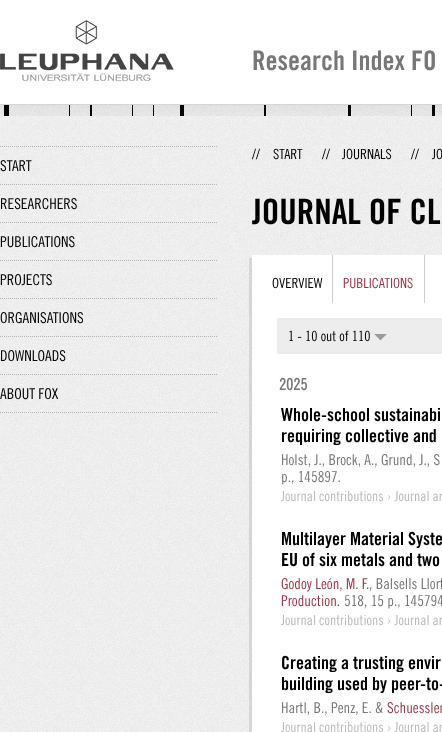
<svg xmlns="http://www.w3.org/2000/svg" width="442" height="732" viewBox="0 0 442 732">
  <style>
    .t1 { font: bold 27px 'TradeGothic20'; fill: #777; }
    .t2 { font: 15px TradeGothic; fill: #000; }
    .t3 { font: 14px TradeGothic; fill: #000; }
    .t4 { font: bold 35px 'TradeGothic20'; fill: #000; }
    .t5 { font: 14px TradeGothic; fill: #973948; }
    .t6 { font: bold 16px TradeGothic; fill: #777; }
    .t7 { font: bold 18px 'TradeGothic20'; fill: #000; }
    .t8 { font: 15px TradeGothic; fill: #777; }
    .t9 { font: 14px TradeGothic; fill: #bbb; }
    .t10 { font: 15px TradeGothic; fill: #973948; }
  </style>
  <rect width="100%" height="100%" fill="#fff"/>
  <image x="0" y="116" width="442" height="616" href="images/1.png"/>
  <rect x="0" y="104" width="442" height="1" fill="#d6d6d6"/>
  <image x="0" y="20" width="174" height="61" href="images/2.png"/>
  <text x="252" y="70" class="t1">Research Index FO</text>
  <image x="0" y="105" width="442" height="11" href="images/3.png"/>
  <path d="M0 412.5H217" fill="none" stroke="#b5b5b5" stroke-dasharray="1 1"/>
  <path d="M0 146.5H217" fill="none" stroke="#b5b5b5" stroke-dasharray="1 1"/>
  <text x="0" y="171" class="t2">START</text>
  <path d="M0 184.5H217" fill="none" stroke="#b5b5b5" stroke-dasharray="1 1"/>
  <text x="0" y="209" class="t2">RESEARCHERS</text>
  <path d="M0 222.5H217" fill="none" stroke="#b5b5b5" stroke-dasharray="1 1"/>
  <text x="0" y="247" class="t2">PUBLICATIONS</text>
  <path d="M0 260.5H217" fill="none" stroke="#b5b5b5" stroke-dasharray="1 1"/>
  <text x="0" y="285" class="t2">PROJECTS</text>
  <path d="M0 298.5H217" fill="none" stroke="#b5b5b5" stroke-dasharray="1 1"/>
  <text x="0" y="323" class="t2">ORGANISATIONS</text>
  <path d="M0 336.5H217" fill="none" stroke="#b5b5b5" stroke-dasharray="1 1"/>
  <text x="0" y="361" class="t2">DOWNLOADS</text>
  <path d="M0 374.5H217" fill="none" stroke="#b5b5b5" stroke-dasharray="1 1"/>
  <text x="0" y="399" class="t2">ABOUT FOX</text>
  <text x="252" y="159" class="t3">//</text>
  <text x="273" y="159" class="t3">START</text>
  <text x="322" y="159" class="t3">//</text>
  <text x="342" y="159" class="t3">JOURNALS</text>
  <text x="411" y="159" class="t3">//</text>
  <text x="432" y="159" class="t3">JO</text>
  <text x="252" y="224" class="t4">JOURNAL OF CL</text>
  <path d="M249 258V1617H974V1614H252V258Z" fill="#0000001a"/>
  <rect x="252" y="255" width="190" height="477" fill="#fff"/>
  <rect x="332" y="255" width="1" height="48" fill="#cdcdcd"/>
  <text x="272" y="288" class="t3">OVERVIEW</text>
  <rect x="424" y="255" width="1" height="48" fill="#cdcdcd"/>
  <text x="343" y="288" class="t5">PUBLICATIONS</text>
  <rect x="277" y="318" width="165" height="36" fill="#ededed"/>
  <image x="374" y="334" width="13" height="7" href="images/4.png"/>
  <text x="288" y="341" class="t3">1 - 10 out of 110</text>
  <text x="279" y="390" class="t6">2025</text>
  <text x="281" y="421" class="t7">Whole-school sustainabi</text>
  <text x="281" y="442" class="t7">requiring collective and</text>
  <text x="281" y="465" class="t8">Holst, J., Brock, A., Grund, J., S</text>
  <text x="281" y="482" class="t8">p., 145897.</text>
  <text x="281" y="501" class="t9">Journal contributions › Journal ar</text>
  <text x="281" y="545" class="t7">Multilayer Material Syste</text>
  <text x="281" y="566" class="t7">EU of six metals and two</text>
  <text x="281" y="589" class="t10">Godoy León, M. F.</text>
  <text x="369" y="589" class="t8">, Balsells Llort</text>
  <text x="281" y="606" class="t10">Production.</text>
  <text x="344" y="606" class="t8">518, 15 p., 145794</text>
  <text x="281" y="625" class="t9">Journal contributions › Journal ar</text>
  <text x="281" y="669" class="t7">Creating a trusting envir</text>
  <text x="281" y="690" class="t7">building used by peer-to-</text>
  <text x="281" y="713" class="t8">Hartl, B., Penz, E. &amp;</text>
  <text x="387" y="713" class="t10">Schuessler</text>
  <text x="281" y="732" class="t9">Journal contributions › Journal ar</text>
</svg>
